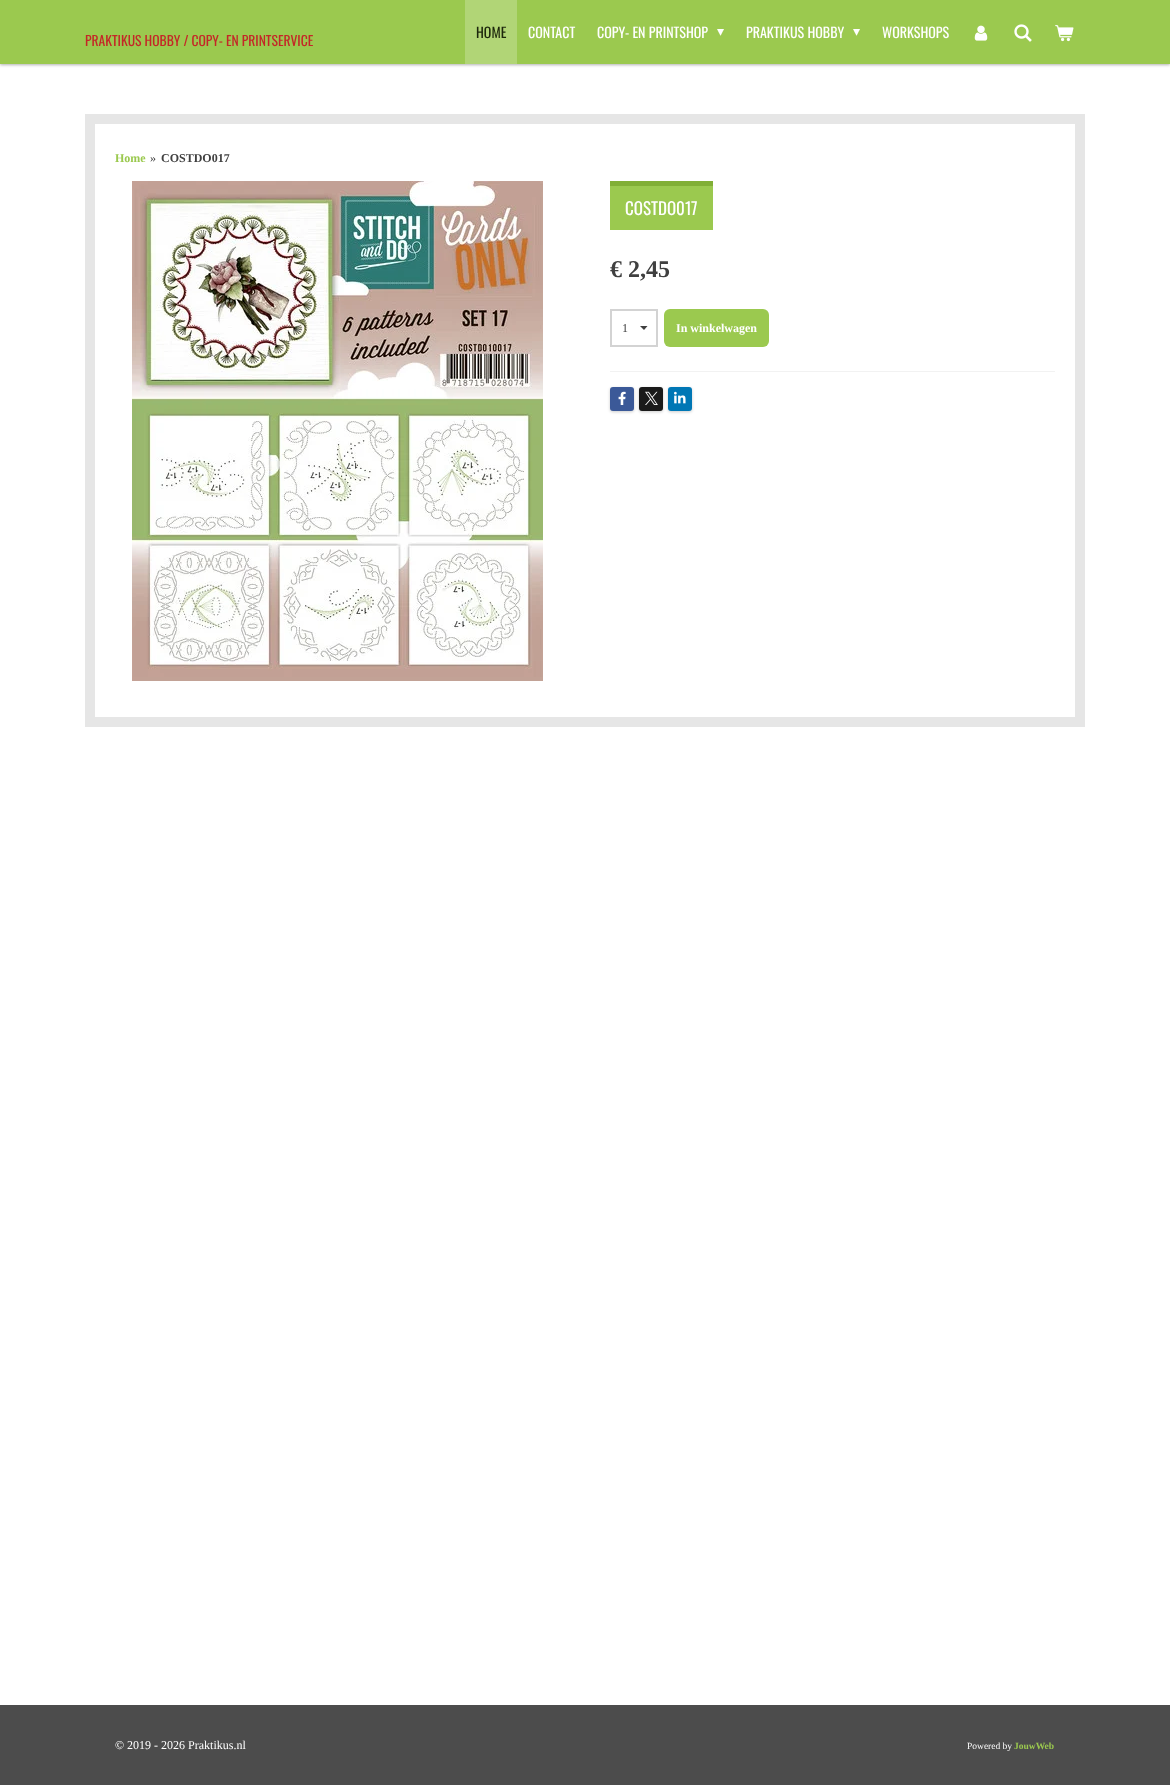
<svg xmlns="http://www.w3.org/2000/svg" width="1170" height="1785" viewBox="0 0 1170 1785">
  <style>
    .t1 { font: 14px Oswald; fill: #1d270c; }
    .t2 { font: 14px Oswald; fill: #fff; }
    .t3 { font: 14px DejaVu Sans; fill: #fff; }
    .t4 { font: 13.6px Oswald; fill: #c42727; }
    .t5 { font: bold 12px Liberation Serif; fill: #9bc94f; }
    .t6 { font: 12px Liberation Serif; fill: #404040; }
    .t7 { font: bold 12px Liberation Serif; fill: #404040; }
    .t8 { font: 17px Oswald; fill: #fff; }
    .t9 { font: bold 24px Liberation Serif; fill: #404040; }
    .t10 { font: bold 12px Liberation Serif; fill: #fff; }
    .t11 { font: 12px Liberation Serif; fill: #fff; }
    .t12 { font: 9.5px Liberation Serif; fill: #fff; }
    .t13 { font: bold 9.5px Liberation Serif; fill: #9bc94f; }
  </style>
  <rect width="100%" height="100%" fill="#fff"/>
  <rect x="0" y="1" width="1170" height="64" fill="#0000004d" filter="blur(1.5px)"/>
  <rect x="0" y="0" width="1170" height="64" fill="#9bc94f"/>
  <rect x="465" y="0" width="52" height="64" fill="#b1d576"/>
  <text x="476" y="38" class="t1">HOME</text>
  <text x="528" y="38" class="t2">CONTACT</text>
  <text x="597" y="38" class="t2">COPY- EN PRINTSHOP</text>
  <text x="717" y="36" class="t3">▾</text>
  <text x="746" y="38" class="t2">PRAKTIKUS HOBBY</text>
  <text x="853" y="36" class="t3">▾</text>
  <text x="882" y="38" class="t2">WORKSHOPS</text>
  <image x="974" y="25" width="14" height="16" href="images/1.png"/>
  <image x="1014" y="24" width="18" height="18" href="images/2.png"/>
  <image x="1055" y="24" width="19" height="18" href="images/3.png"/>
  <text x="85" y="46" class="t4">PRAKTIKUS HOBBY / COPY- EN PRINTSERVICE</text>
  <rect x="85" y="114" width="1000" height="613" fill="#e6e6e6"/>
  <rect x="95" y="124" width="980" height="593" fill="#fff"/>
  <text x="115" y="162" class="t5">Home</text>
  <text x="150" y="162" class="t6">»</text>
  <text x="161" y="162" class="t7">COSTDO017</text>
  <image x="132" y="181" width="411" height="500" href="images/4.png"/>
  <rect x="610" y="186" width="103" height="44" fill="#9bc94f"/>
  <rect x="610" y="181" width="103" height="5" fill="#81af36"/>
  <text x="625" y="215" class="t8">COSTDO017</text>
  <text x="610" y="277" class="t9">€ 2,45</text>
  <path d="M644 330L640 326H647.5Z" fill="#404040"/>
  <rect x="611" y="310" width="46" height="36" fill="none" stroke="#d3d3d3" stroke-width="2"/>
  <text x="622" y="332" class="t6">1</text>
  <rect x="664" y="309" width="105" height="38" rx="6" fill="#9bc94f"/>
  <text x="676" y="332" class="t10">In winkelwagen</text>
  <rect x="610" y="371" width="445" height="1" fill="#f2f2f2"/>
  <rect x="610" y="388" width="24" height="24" rx="3" fill="#00000033" filter="blur(1.5px)"/>
  <rect x="610" y="387" width="24" height="24" rx="3" fill="#3b5998"/>
  <image x="618" y="391" width="8" height="14" href="images/5.png"/>
  <rect x="639" y="388" width="24" height="24" rx="3" fill="#00000033" filter="blur(1.5px)"/>
  <rect x="639" y="387" width="24" height="24" rx="3" fill="#1a1a1a"/>
  <image x="645" y="391" width="13" height="14" href="images/6.png"/>
  <rect x="668" y="388" width="24" height="24" rx="3" fill="#00000033" filter="blur(1.5px)"/>
  <rect x="668" y="387" width="24" height="24" rx="3" fill="#0077b5"/>
  <image x="674" y="391" width="12" height="13" href="images/7.png"/>
  <rect x="0" y="1705" width="1170" height="80" fill="#4c4c4c"/>
  <text x="115" y="1749" class="t11">© 2019 - 2026 Praktikus.nl</text>
  <text x="967" y="1749" class="t12">Powered by</text>
  <text x="1014" y="1749" class="t13">JouwWeb</text>
</svg>
